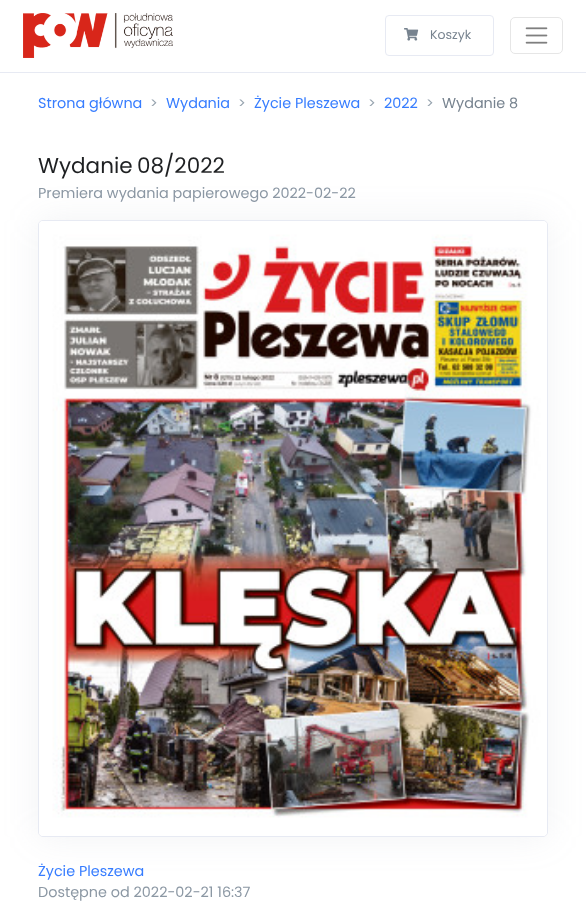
<svg xmlns="http://www.w3.org/2000/svg" width="586" height="922" viewBox="0 0 586 922">
  <style>
    .t1 { font: 12.5px Poppins; fill: #77838f; }
    .t2 { font: 14.4px Poppins; fill: #377dff; }
    .t3 { font: 14.4px Poppins; fill: #97a4af; }
    .t4 { font: 14.4px Poppins; fill: #77838f; }
    .t5 { font: 21.5px Poppins; fill: #1e2022; }
    .t6 { font: 14.4px Poppins; fill: #8c98a4; }
  </style>
  <rect width="100%" height="100%" fill="#fff"/>
  <rect x="0" y="72" width="586" height="1" fill="#e7eaf3"/>
  <image x="23" y="13" width="150" height="45" href="images/1.png"/>
  <rect x="385.5" y="15.5" width="108" height="40" rx="3.5" fill="none" stroke="#e7eaf3"/>
  <image x="404" y="28" width="15" height="13" href="images/2.png"/>
  <text x="430" y="39" class="t1">Koszyk</text>
  <rect x="510.5" y="17.5" width="52" height="36" rx="4.5" fill="none" stroke="#e6e6e6"/>
  <image x="525" y="27" width="23" height="17" href="images/3.png"/>
  <text x="38" y="108" class="t2">Strona główna</text>
  <text x="150" y="108" class="t3">&gt;</text>
  <text x="166" y="108" class="t2">Wydania</text>
  <text x="238" y="108" class="t3">&gt;</text>
  <text x="254" y="108" class="t2">Życie Pleszewa</text>
  <text x="368" y="108" class="t3">&gt;</text>
  <text x="384" y="108" class="t2">2022</text>
  <text x="426" y="108" class="t3">&gt;</text>
  <text x="442" y="108" class="t4">Wydanie 8</text>
  <text x="38" y="173" class="t5">Wydanie</text>
  <text x="137" y="173" class="t5">08/2022</text>
  <text x="38" y="198" class="t6">Premiera wydania papierowego 2022-02-22</text>
  <rect x="38" y="220" width="510" height="617" rx="5" fill="#8c98a41f" filter="blur(17.5px)"/>
  <rect x="38.5" y="220.5" width="509" height="616" rx="4.5" fill="none" stroke="#e7eaf3"/>
  <image x="39" y="221" width="508" height="615" href="images/4.png"/>
  <text x="38" y="876" class="t2">Życie Pleszewa</text>
  <text x="38" y="897" class="t6">Dostępne od 2022-02-21 16:37</text>
</svg>
